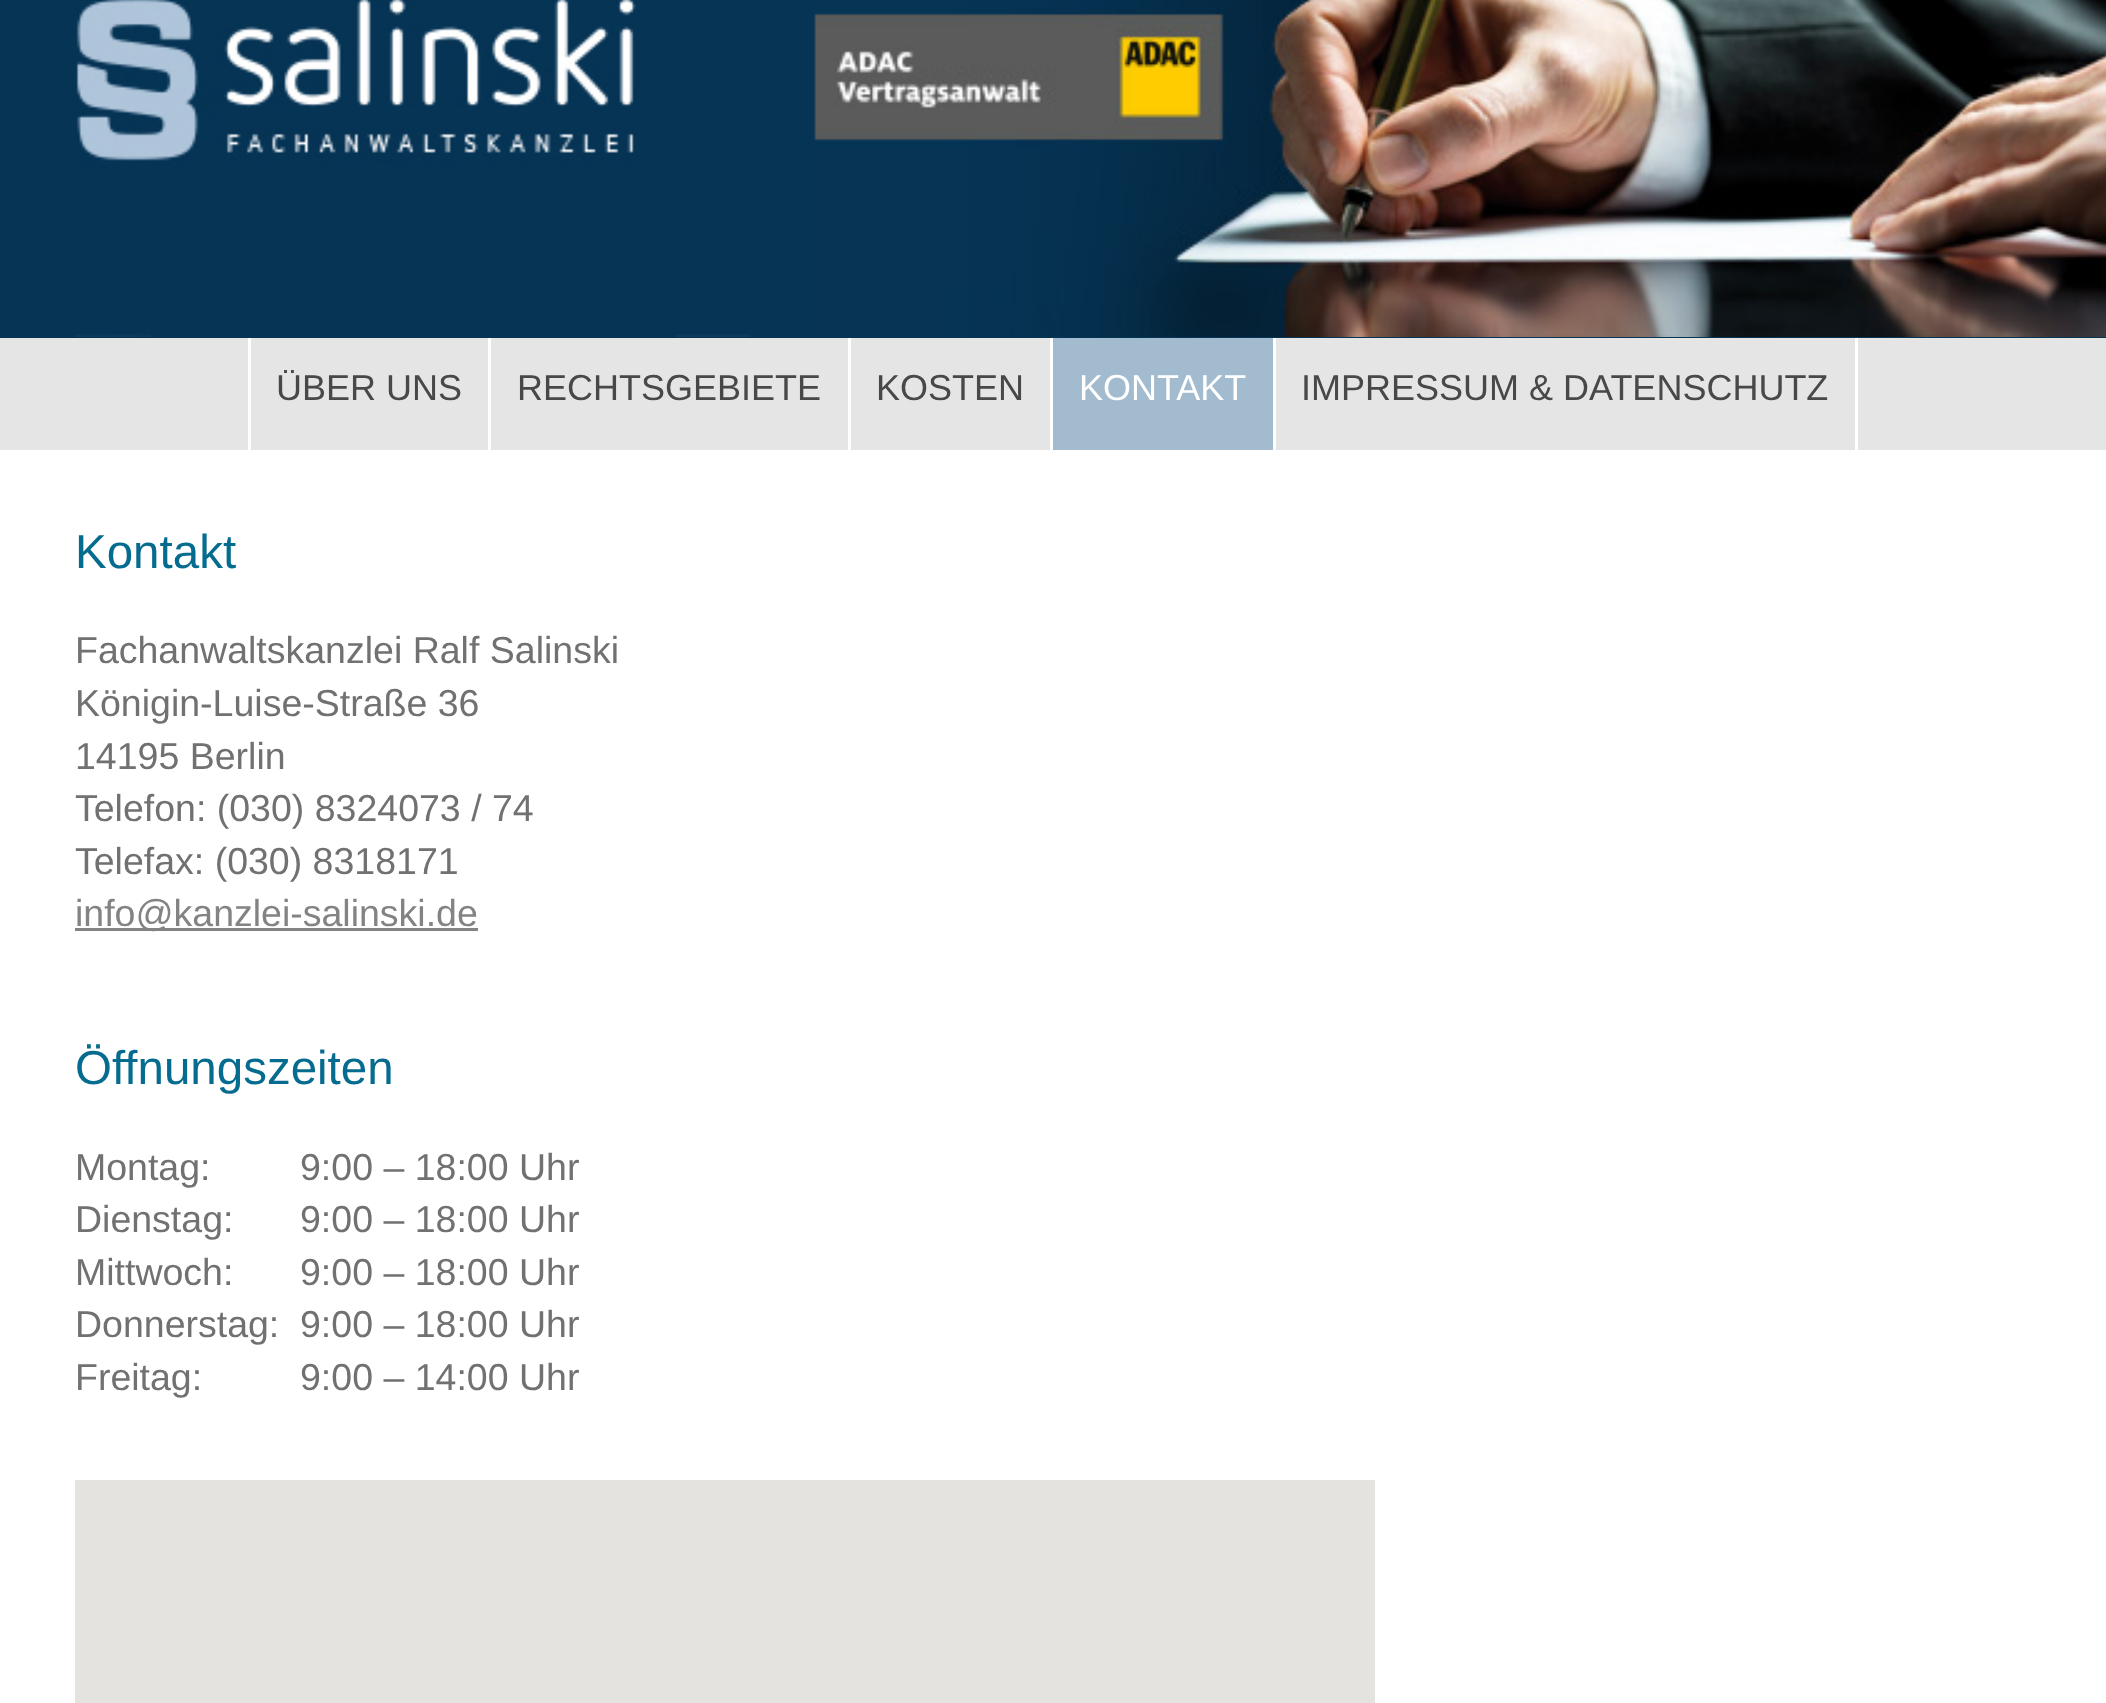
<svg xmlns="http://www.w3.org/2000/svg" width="2106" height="1703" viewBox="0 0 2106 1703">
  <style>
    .t1 { font: 36px Liberation Sans; fill: #48484a; }
    .t2 { font: 36px Liberation Sans; fill: #fff; }
    .t3 { font: 47.5px Liberation Sans; fill: #056c8f; }
    .t4 { font: 37.5px Liberation Sans; fill: #717172; }
    .t5 { font: 37.5px Liberation Sans; fill: #838383; }
  </style>
  <rect width="100%" height="100%" fill="#fff"/>
  <rect x="0" y="0" width="2106" height="338" fill="#063455"/>
  <image x="75" y="0" width="675" height="337" href="images/1.png"/>
  <image x="814" y="0" width="1292" height="337" href="images/2.png"/>
  <rect x="0" y="338" width="2106" height="112" fill="#e5e5e5"/>
  <rect x="248" y="338" width="3" height="112" fill="#fff"/>
  <text x="276" y="400" class="t1">ÜBER UNS</text>
  <rect x="488" y="338" width="3" height="112" fill="#fff"/>
  <text x="517" y="400" class="t1">RECHTSGEBIETE</text>
  <rect x="848" y="338" width="3" height="112" fill="#fff"/>
  <text x="876" y="400" class="t1">KOSTEN</text>
  <rect x="1050" y="338" width="3" height="112" fill="#fff"/>
  <rect x="1053" y="338" width="220" height="112" fill="#a2bbcf"/>
  <text x="1079" y="400" class="t2">KONTAKT</text>
  <rect x="1855" y="338" width="3" height="112" fill="#fff"/>
  <rect x="1273" y="338" width="3" height="112" fill="#fff"/>
  <text x="1301" y="400" class="t1">IMPRESSUM &amp; DATENSCHUTZ</text>
  <text x="75" y="568" class="t3">Kontakt</text>
  <text x="75" y="663" class="t4">Fachanwaltskanzlei Ralf Salinski</text>
  <text x="75" y="716" class="t4">Königin-Luise-Straße 36</text>
  <text x="75" y="769" class="t4">14195 Berlin</text>
  <text x="75" y="821" class="t4">Telefon: (030) 8324073 / 74</text>
  <text x="75" y="874" class="t4">Telefax: (030) 8318171</text>
  <rect x="75" y="928" width="403" height="3" fill="#838383"/>
  <text x="75" y="926" class="t5">info@kanzlei-salinski.de</text>
  <text x="75" y="1084" class="t3">Öffnungszeiten</text>
  <text x="75" y="1180" class="t4">Montag:</text>
  <text x="300" y="1180" class="t4">9:00 – 18:00 Uhr</text>
  <text x="75" y="1232" class="t4">Dienstag:</text>
  <text x="300" y="1232" class="t4">9:00 – 18:00 Uhr</text>
  <text x="75" y="1285" class="t4">Mittwoch:</text>
  <text x="300" y="1285" class="t4">9:00 – 18:00 Uhr</text>
  <text x="75" y="1337" class="t4">Donnerstag:</text>
  <text x="300" y="1337" class="t4">9:00 – 18:00 Uhr</text>
  <text x="75" y="1390" class="t4">Freitag:</text>
  <text x="300" y="1390" class="t4">9:00 – 14:00 Uhr</text>
  <rect x="75" y="1480" width="1300" height="223" fill="#e5e3df"/>
</svg>
